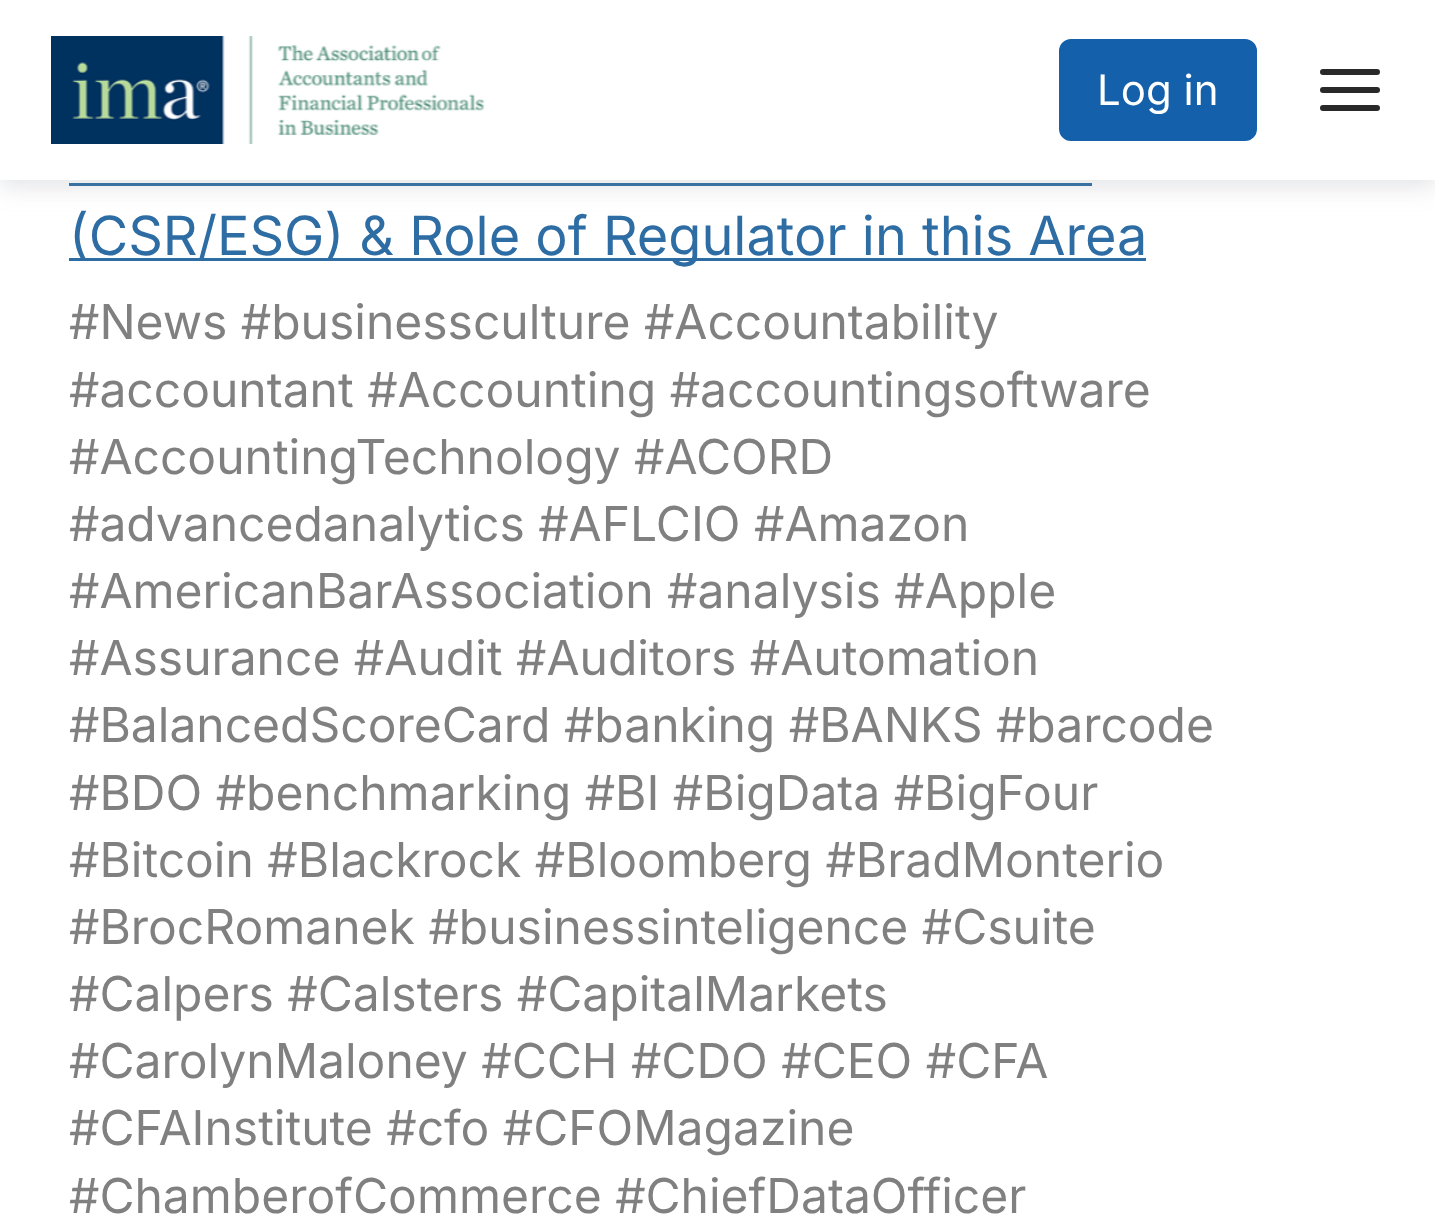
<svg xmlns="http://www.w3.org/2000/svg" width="1435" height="1221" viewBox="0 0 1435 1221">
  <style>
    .t1 { font: 42px Inter; fill: #fff; }
    .t2 { font: 54px Inter; fill: #2e6da4; }
    .t3 { font: 48px Inter; fill: #808080; }
  </style>
  <rect width="100%" height="100%" fill="#fff"/>
  <rect x="69" y="183" width="1023" height="3" fill="#2e6da4"/>
  <rect x="0" y="6" width="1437" height="180" fill="#8387913d" filter="blur(12px)"/>
  <rect x="0" y="0" width="1435" height="180" fill="#fff"/>
  <image x="51" y="36" width="434" height="108" href="images/1.png"/>
  <rect x="1060.5" y="40.5" width="195" height="99" rx="10.5" fill="#1460aa" stroke="#1460aa" stroke-width="3"/>
  <text x="1097" y="105" class="t1">Log in</text>
  <rect x="1320" y="69" width="60" height="6" rx="3" fill="#292929"/>
  <rect x="1320" y="87" width="60" height="6" rx="3" fill="#292929"/>
  <rect x="1320" y="105" width="60" height="6" rx="3" fill="#292929"/>
  <rect x="69" y="258" width="1077" height="3" fill="#2e6da4"/>
  <text x="69" y="255" class="t2">(CSR/ESG) &amp; Role of Regulator in this Area</text>
  <text x="69" y="339" class="t3">#News #businessculture #Accountability</text>
  <text x="69" y="407" class="t3">#accountant #Accounting #accountingsoftware</text>
  <text x="69" y="474" class="t3">#AccountingTechnology #ACORD</text>
  <text x="69" y="541" class="t3">#advancedanalytics #AFLCIO #Amazon</text>
  <text x="69" y="608" class="t3">#AmericanBarAssociation #analysis #Apple</text>
  <text x="69" y="675" class="t3">#Assurance #Audit #Auditors #Automation</text>
  <text x="69" y="742" class="t3">#BalancedScoreCard #banking #BANKS #barcode</text>
  <text x="69" y="810" class="t3">#BDO #benchmarking #BI #BigData #BigFour</text>
  <text x="69" y="877" class="t3">#Bitcoin #Blackrock #Bloomberg #BradMonterio</text>
  <text x="69" y="944" class="t3">#BrocRomanek #businessinteligence #Csuite</text>
  <text x="69" y="1011" class="t3">#Calpers #Calsters #CapitalMarkets</text>
  <text x="69" y="1078" class="t3">#CarolynMaloney #CCH #CDO #CEO #CFA</text>
  <text x="69" y="1145" class="t3">#CFAInstitute #cfo #CFOMagazine</text>
  <text x="69" y="1213" class="t3">#ChamberofCommerce #ChiefDataOfficer</text>
</svg>
